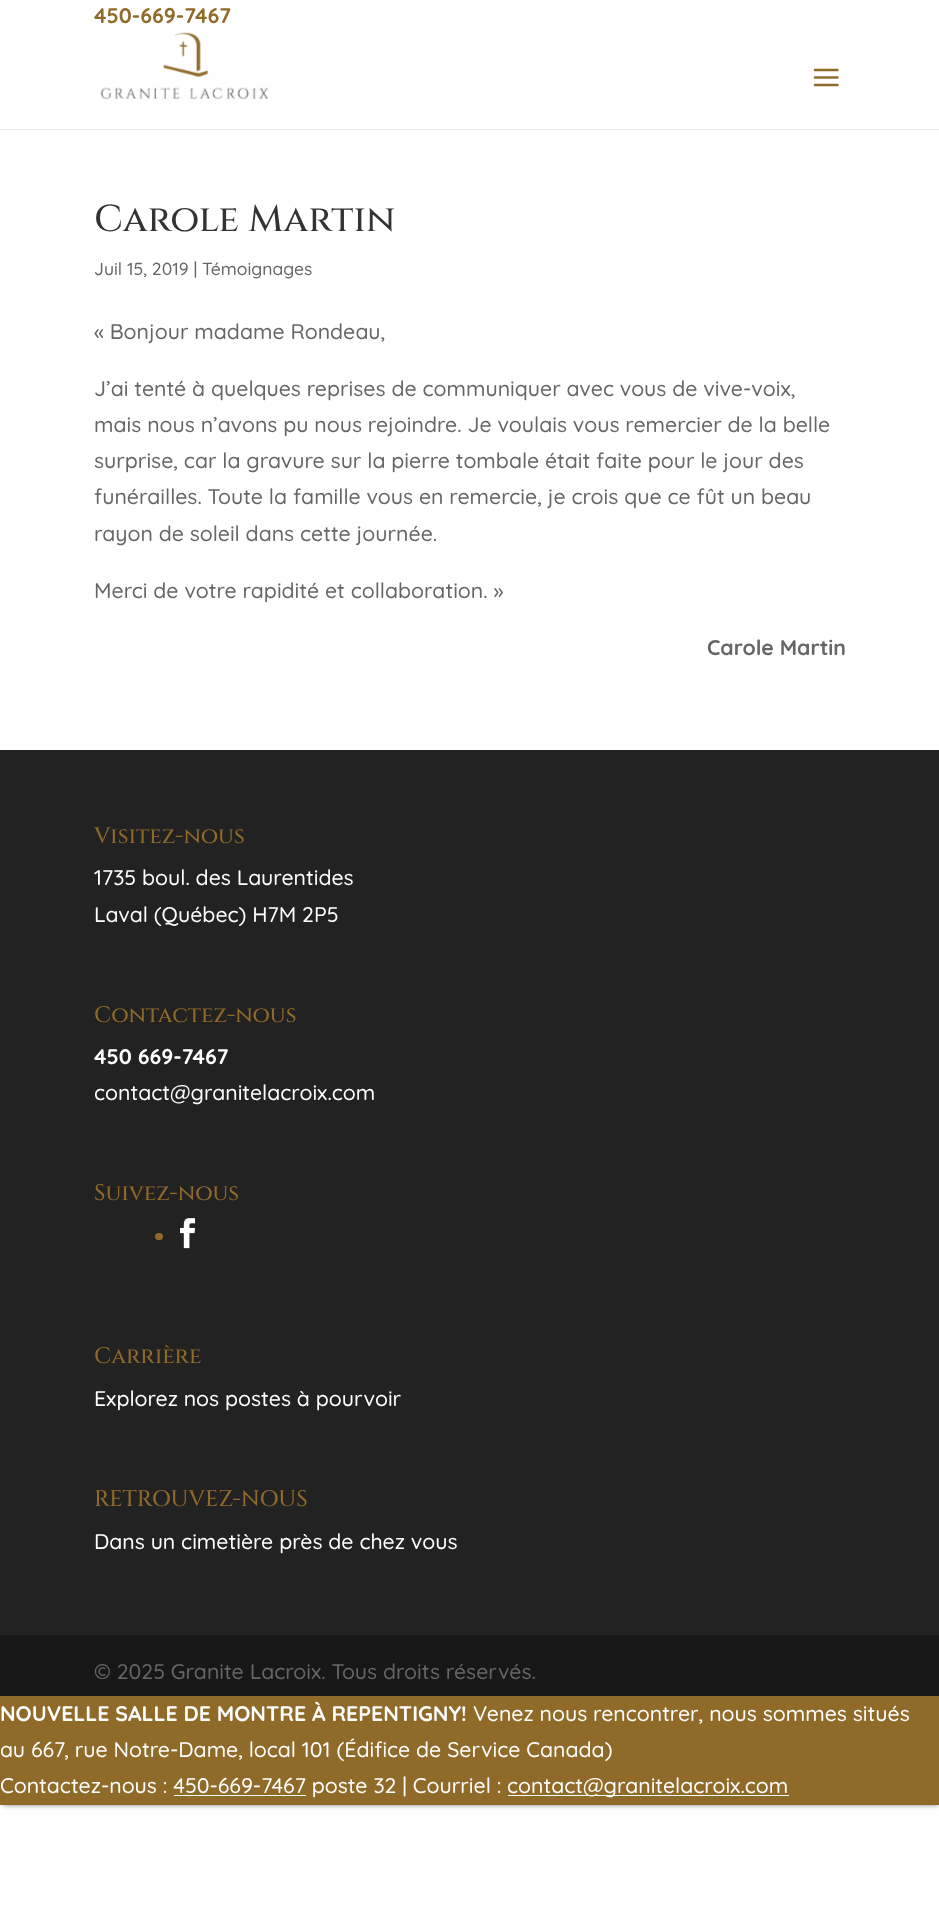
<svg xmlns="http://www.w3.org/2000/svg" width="939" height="1914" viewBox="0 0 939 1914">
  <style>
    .t1 { font: bold 21.25px Quicksand; fill: #906a29; }
    .t2 { font: 500 37.5px Cinzel; fill: #333; }
    .t3 { font: 500 17.5px Quicksand; fill: #666; }
    .t4 { font: 500 21.25px Quicksand; fill: #666; }
    .t5 { font: bold 21.25px Quicksand; fill: #666; }
    .t6 { font: 500 22.5px Cinzel; fill: #906a29; }
    .t7 { font: 500 21.25px Quicksand; fill: #fff; }
    .t8 { font: bold 21.25px Quicksand; fill: #fff; }
  </style>
  <rect width="100%" height="100%" fill="#fff"/>
  <rect x="0" y="129" width="939" height="1" fill="#e6e6e6"/>
  <text x="94" y="23" class="t1">450-669-7467</text>
  <image x="100" y="32" width="169" height="67" href="images/1.png"/>
  <image x="813" y="68" width="26" height="19" href="images/2.png"/>
  <text x="94" y="231" class="t2">Carole Martin</text>
  <text x="94" y="275" class="t3">Juil 15, 2019 | Témoignages</text>
  <text x="94" y="339" class="t4">« Bonjour madame Rondeau,</text>
  <text x="94" y="396" class="t4">J’ai tenté à quelques reprises de communiquer avec vous de vive-voix,</text>
  <text x="94" y="432" class="t4">mais nous n’avons pu nous rejoindre. Je voulais vous remercier de la belle</text>
  <text x="94" y="468" class="t4">surprise, car la gravure sur la pierre tombale était faite pour le jour des</text>
  <text x="94" y="504" class="t4">funérailles. Toute la famille vous en remercie, je crois que ce fût un beau</text>
  <text x="94" y="541" class="t4">rayon de soleil dans cette journée.</text>
  <text x="94" y="598" class="t4">Merci de votre rapidité et collaboration. »</text>
  <text x="707" y="655" class="t5">Carole Martin</text>
  <rect x="0" y="750" width="939" height="885" fill="#222"/>
  <text x="94" y="843" class="t6">Visitez-nous</text>
  <text x="94" y="885" class="t7">1735 boul. des Laurentides</text>
  <text x="94" y="922" class="t7">Laval (Québec) H7M 2P5</text>
  <text x="94" y="1022" class="t6">Contactez-nous</text>
  <text x="94" y="1064" class="t8">450 669-7467</text>
  <text x="94" y="1100" class="t7">contact@granitelacroix.com</text>
  <text x="94" y="1200" class="t6">Suivez-nous</text>
  <rect x="155" y="1233" width="8" height="7" rx="3.5" fill="#906a29"/>
  <image x="180" y="1218" width="16" height="31" href="images/3.png"/>
  <text x="94" y="1363" class="t6">Carrière</text>
  <text x="94" y="1406" class="t7">Explorez nos postes à pourvoir</text>
  <text x="94" y="1506" class="t6">RETROUVEZ-NOUS</text>
  <text x="94" y="1549" class="t7">Dans un cimetière près de chez vous</text>
  <rect x="0" y="1635" width="939" height="61" fill="#171717"/>
  <text x="94" y="1679" class="t4">© 2025 Granite Lacroix. Tous droits réservés.</text>
  <rect x="3" y="1701" width="935" height="104" fill="#00000080" filter="blur(2.5px)"/>
  <rect x="0" y="1696" width="939" height="109" fill="#906a29"/>
  <text x="0" y="1721" class="t8">NOUVELLE SALLE DE MONTRE À REPENTIGNY!</text>
  <text x="473" y="1721" class="t7">Venez nous rencontrer, nous sommes situés</text>
  <text x="0" y="1757" class="t7">au 667, rue Notre-Dame, local 101 (Édifice de Service Canada)</text>
  <text x="0" y="1793" class="t7">Contactez-nous : 450-669-7467 poste 32 | Courriel :</text>
  <rect x="508" y="1795" width="281" height="1" fill="#fff"/>
  <text x="507" y="1793" class="t7">contact@granitelacroix.com</text>
  <rect x="174" y="1795" width="132" height="1" fill="#fff"/>
</svg>
